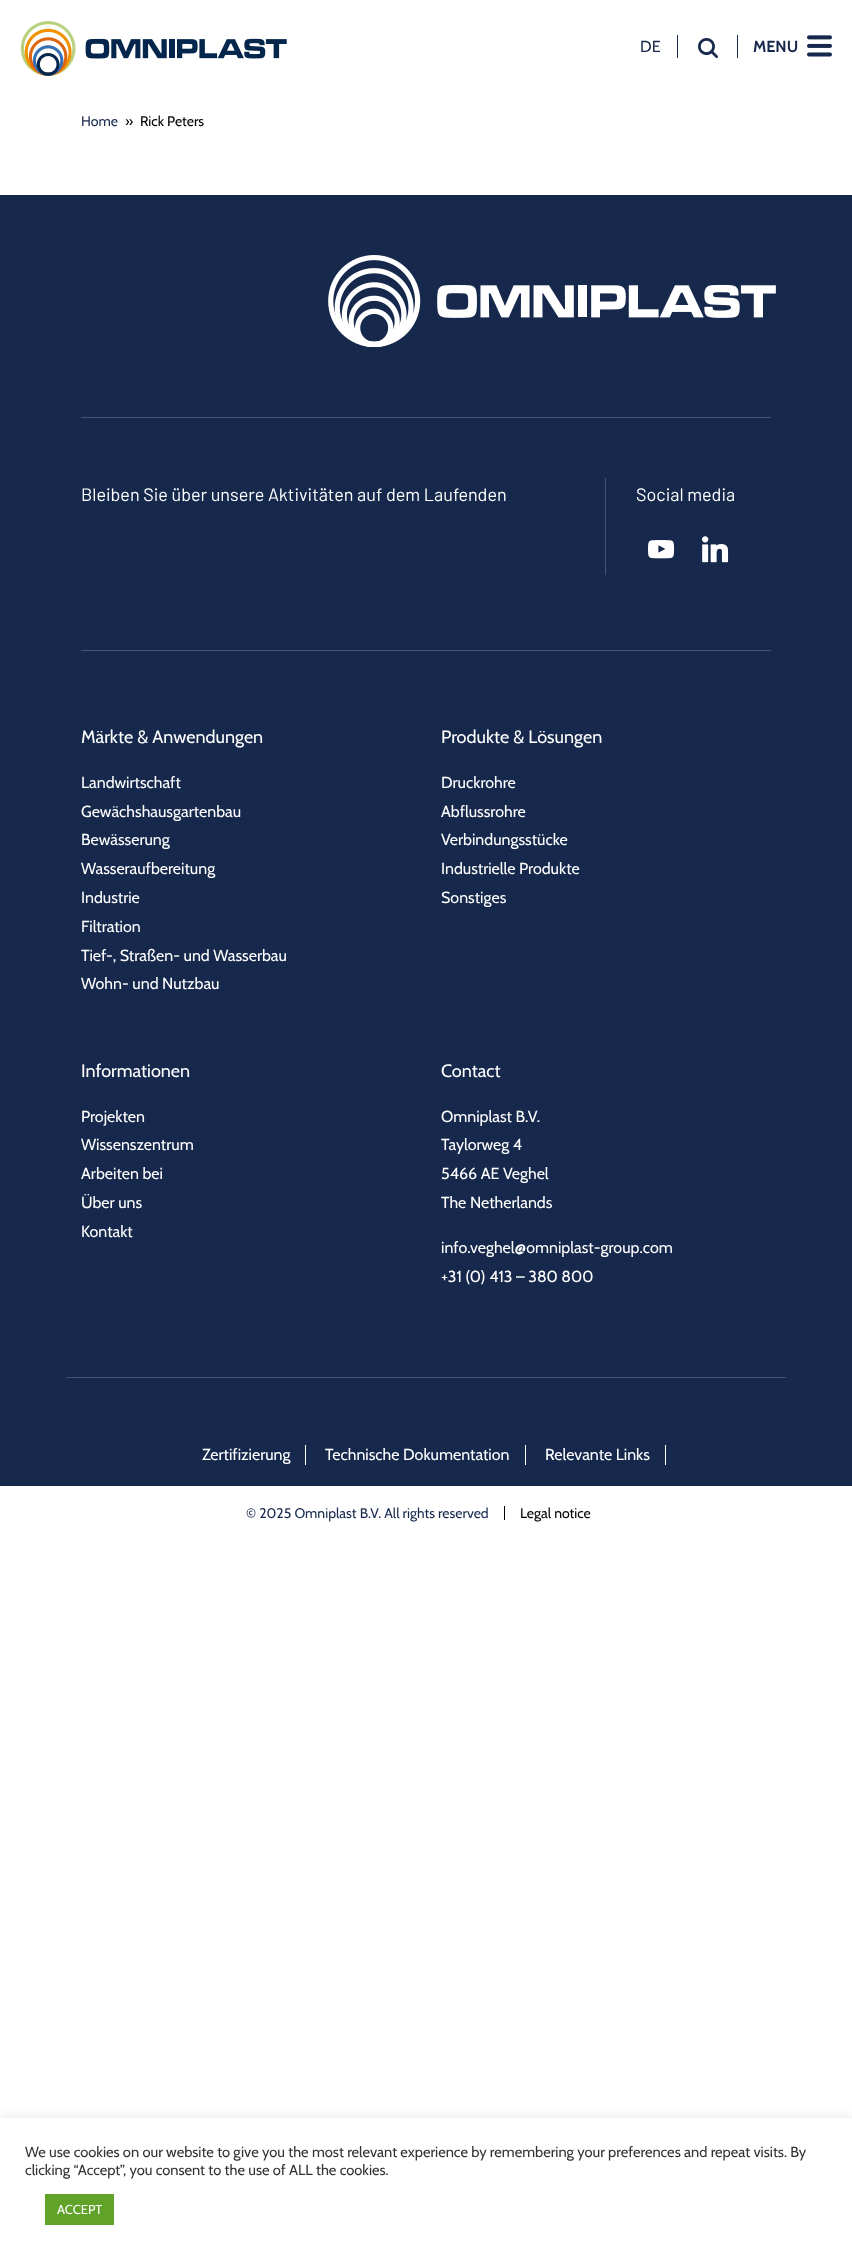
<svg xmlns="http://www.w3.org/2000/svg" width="852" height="2255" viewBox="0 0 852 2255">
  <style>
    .t1 { font: 16px Cabin; fill: #16284c; }
    .t2 { font: bold 16px Cabin; fill: #16284c; }
    .t3 { font: 14px Cabin; fill: #16284c; }
    .t4 { font: 14px Cabin; fill: #000; }
    .t5 { font: 18px Barlow; fill: #fff; }
    .t6 { font: 18px Cabin; fill: #fff; }
    .t7 { font: 16px Cabin; fill: #fff; }
    .t8 { font: 14.67px Cabin; fill: #333; }
    .t9 { font: 13px Cabin; fill: #fff; }
  </style>
  <rect width="100%" height="100%" fill="#fff"/>
  <image x="20" y="21" width="267" height="55" href="images/1.png"/>
  <text x="640" y="52" class="t1">DE</text>
  <rect x="677" y="35" width="1" height="23" fill="#16284c"/>
  <image x="698" y="38" width="20" height="20" href="images/2.png"/>
  <rect x="737" y="35" width="1" height="23" fill="#16284c"/>
  <text x="753" y="52" class="t2">MENU</text>
  <image x="807" y="35" width="25" height="22" href="images/3.png"/>
  <text x="81" y="126" class="t3">Home</text>
  <text x="125" y="126" class="t4">»</text>
  <text x="140" y="126" class="t4">Rick Peters</text>
  <rect x="0" y="195" width="852" height="1291" fill="#16284c"/>
  <image x="328" y="255" width="448" height="92" href="images/4.png"/>
  <rect x="81" y="417" width="690" height="1" fill="#455370"/>
  <rect x="605" y="478" width="1" height="97" fill="#455370"/>
  <text x="81" y="501" class="t5">Bleiben Sie über unsere Aktivitäten auf dem Laufenden</text>
  <text x="636" y="501" class="t5">Social media</text>
  <image x="648" y="540" width="27" height="19" href="images/5.png"/>
  <image x="702" y="536" width="27" height="27" href="images/6.png"/>
  <rect x="81" y="650" width="690" height="1" fill="#455370"/>
  <text x="81" y="743" class="t6">Märkte &amp; Anwendungen</text>
  <text x="81" y="788" class="t7">Landwirtschaft</text>
  <text x="81" y="817" class="t7">Gewächshausgartenbau</text>
  <text x="81" y="845" class="t7">Bewässerung</text>
  <text x="81" y="874" class="t7">Wasseraufbereitung</text>
  <text x="81" y="903" class="t7">Industrie</text>
  <text x="81" y="932" class="t7">Filtration</text>
  <text x="81" y="961" class="t7">Tief-, Straßen- und Wasserbau</text>
  <text x="81" y="989" class="t7">Wohn- und Nutzbau</text>
  <text x="441" y="743" class="t6">Produkte &amp; Lösungen</text>
  <text x="441" y="788" class="t7">Druckrohre</text>
  <text x="441" y="817" class="t7">Abflussrohre</text>
  <text x="441" y="845" class="t7">Verbindungsstücke</text>
  <text x="441" y="874" class="t7">Industrielle Produkte</text>
  <text x="441" y="903" class="t7">Sonstiges</text>
  <text x="81" y="1077" class="t6">Informationen</text>
  <text x="81" y="1122" class="t7">Projekten</text>
  <text x="81" y="1150" class="t7">Wissenszentrum</text>
  <text x="81" y="1179" class="t7">Arbeiten bei</text>
  <text x="81" y="1208" class="t7">Über uns</text>
  <text x="81" y="1237" class="t7">Kontakt</text>
  <text x="441" y="1077" class="t6">Contact</text>
  <text x="441" y="1122" class="t7">Omniplast B.V.</text>
  <text x="441" y="1150" class="t7">Taylorweg 4</text>
  <text x="441" y="1179" class="t7">5466 AE Veghel</text>
  <text x="441" y="1208" class="t7">The Netherlands</text>
  <text x="441" y="1253" class="t7">info.veghel@omniplast-group.com</text>
  <text x="441" y="1282" class="t7">+31 (0) 413 – 380 800</text>
  <rect x="66" y="1377" width="720" height="1" fill="#455370"/>
  <rect x="305" y="1445" width="1" height="20" fill="#fff"/>
  <text x="202" y="1460" class="t7">Zertifizierung</text>
  <rect x="525" y="1445" width="1" height="20" fill="#fff"/>
  <text x="325" y="1460" class="t7">Technische Dokumentation</text>
  <rect x="665" y="1445" width="1" height="20" fill="#fff"/>
  <text x="545" y="1460" class="t7">Relevante Links</text>
  <text x="246" y="1518" class="t3">© 2025 Omniplast B.V. All rights reserved</text>
  <rect x="504" y="1506" width="1" height="14" fill="#000"/>
  <text x="520" y="1518" class="t4">Legal notice</text>
  <rect x="0" y="2117" width="852" height="137" fill="#acabab4d" filter="blur(5px)"/>
  <rect x="0" y="2118" width="852" height="137" fill="#fff"/>
  <text x="25" y="2157" class="t8">We use cookies on our website to give you the most relevant experience by remembering your preferences and repeat visits. By</text>
  <text x="25" y="2175" class="t8">clicking “Accept”, you consent to the use of ALL the cookies.</text>
  <rect x="45" y="2194" width="69" height="31" fill="#61a229"/>
  <text x="57" y="2214" class="t9">ACCEPT</text>
</svg>
